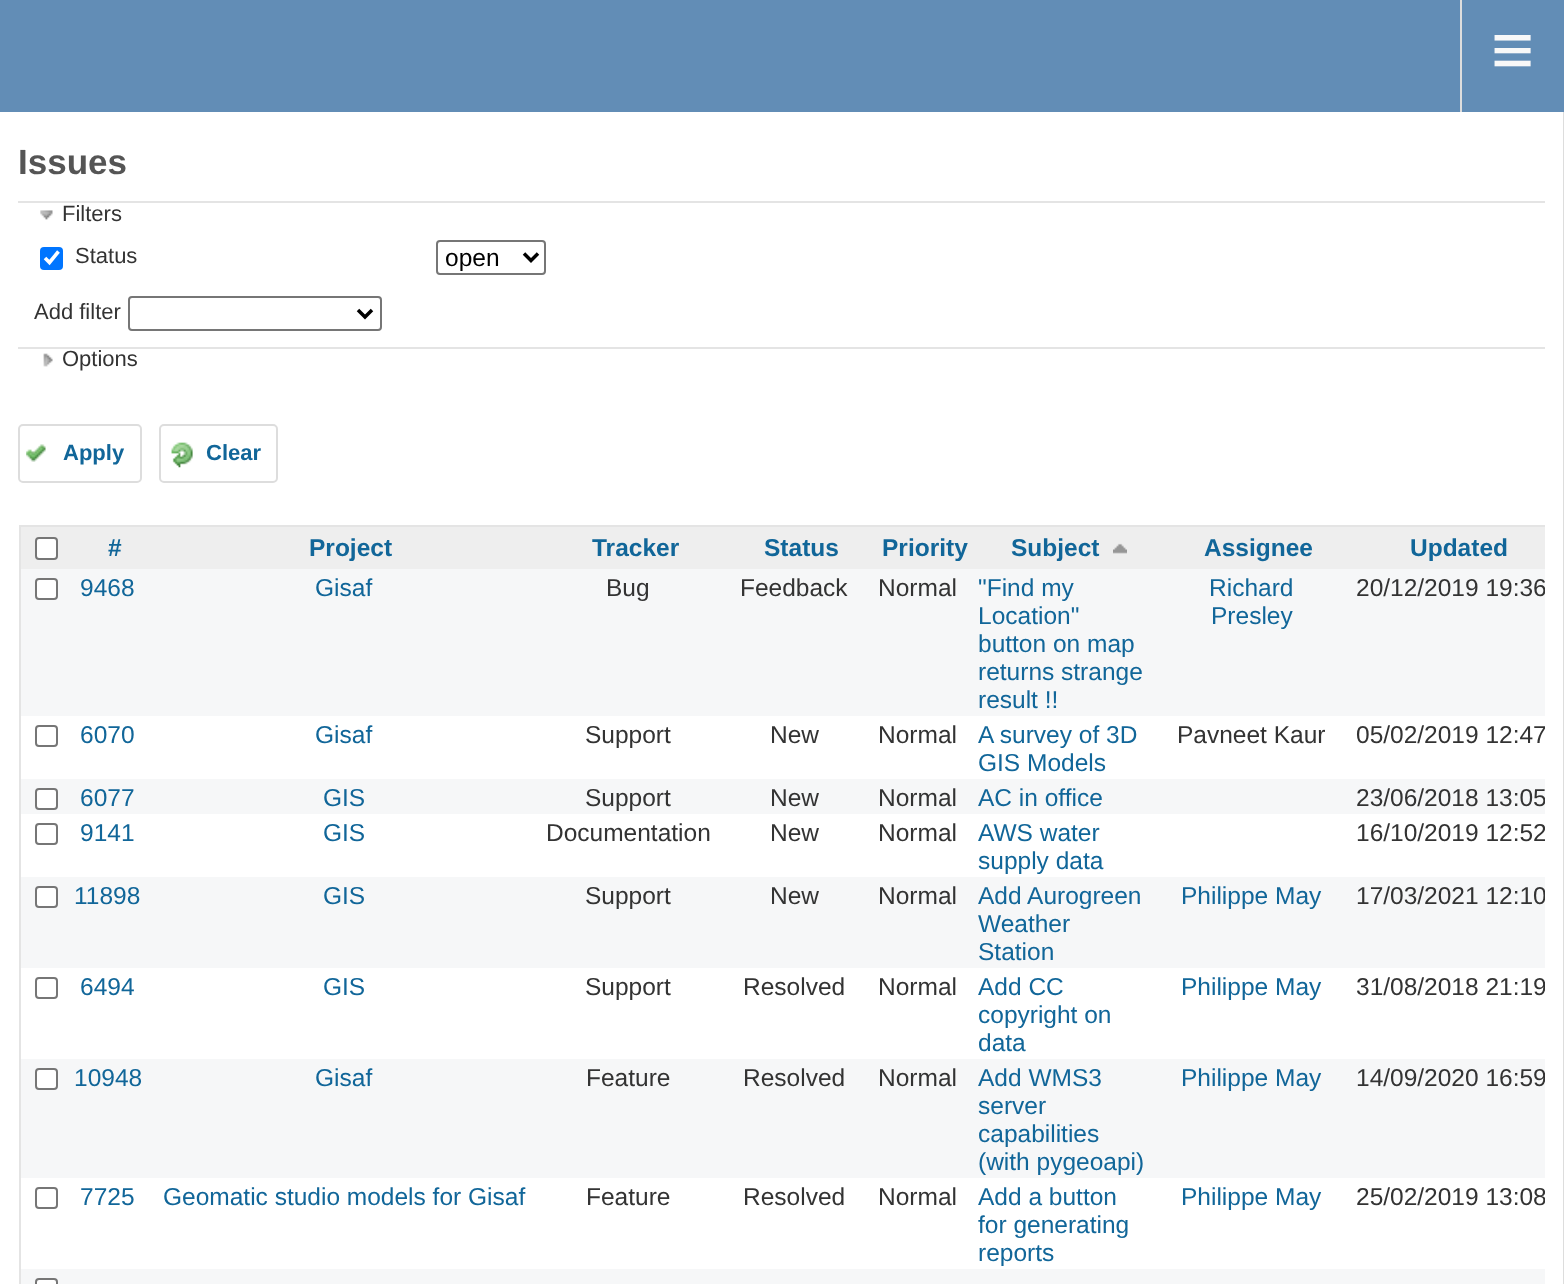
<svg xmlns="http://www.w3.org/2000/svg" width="1564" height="1284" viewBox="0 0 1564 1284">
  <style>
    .t1 { font: 74px Liberation Sans; fill: #f8f8f8; }
    .t2 { font: bold 35px Liberation Sans; fill: #555; }
    .t3 { font: 22px Liberation Sans; fill: #333; }
    .t4 { font: 24.5px Liberation Sans; fill: #000; }
    .t5 { font: bold 22px Liberation Sans; fill: #169; }
    .t6 { font: bold 24.5px Liberation Sans; fill: #169; }
    .t7 { font: 24.5px Liberation Sans; fill: #169; }
    .t8 { font: 24.5px Liberation Sans; fill: #333; }
  </style>
  <defs>
    <clipPath id="clip1"><rect x="18" y="523" width="1527" height="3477"/></clipPath>
  </defs>
  <rect width="100%" height="100%" fill="#fff"/>
  <rect x="0" y="0" width="1564" height="112" fill="#628db6"/>
  <rect x="1460" y="0" width="2" height="112" fill="#ddd"/>
  <text x="1491" y="75" class="t1">≡</text>
  <rect x="1563" y="112" width="1" height="1172" fill="#ddd"/>
  <text x="18" y="174" class="t2">Issues</text>
  <rect x="18" y="201" width="1527" height="2" fill="#e4e4e4"/>
  <image x="40" y="210" width="13" height="10" href="images/1.png"/>
  <text x="62" y="221" class="t3">Filters</text>
  <rect x="40" y="247" width="23" height="23" rx="4" fill="#0075ff"/>
  <path d="M45 258L49.5 262.5L58.5 251.5" fill="none" stroke="#fff" stroke-width="3.6"/>
  <text x="75" y="263" class="t3">Status</text>
  <rect x="437" y="241" width="108" height="33" rx="3" fill="none" stroke="#767676" stroke-width="2"/>
  <path d="M524 253.5L531 260.5L538 253.5" fill="none" stroke="#000" stroke-width="3.5"/>
  <text x="445" y="266" class="t4">open</text>
  <text x="34" y="319" class="t3">Add filter</text>
  <rect x="129" y="297" width="252" height="33" rx="3" fill="none" stroke="#767676" stroke-width="2"/>
  <path d="M358 310L365 317L372 310" fill="none" stroke="#000" stroke-width="3.5"/>
  <rect x="18" y="347" width="1527" height="2" fill="#e4e4e4"/>
  <image x="43" y="353" width="10" height="14" href="images/2.png"/>
  <text x="62" y="366" class="t3">Options</text>
  <image x="26" y="444" width="20" height="18" href="images/3.png"/>
  <rect x="19" y="425" width="122" height="57" rx="4" fill="none" stroke="#ddd" stroke-width="2"/>
  <text x="63" y="460" class="t5">Apply</text>
  <image x="171" y="442" width="22" height="26" href="images/4.png"/>
  <rect x="160" y="425" width="117" height="57" rx="4" fill="none" stroke="#ddd" stroke-width="2"/>
  <text x="206" y="460" class="t5">Clear</text>
  <rect x="19" y="525" width="1526" height="2" fill="#e4e4e4"/>
  <rect x="19" y="525" width="2" height="759" fill="#e4e4e4"/>
  <rect x="21" y="527" width="1524" height="42" fill="#eee"/>
  <rect x="36" y="538" width="21" height="21" rx="3" fill="#fff" stroke="#767676" stroke-width="2"/>
  <text x="108" y="556" class="t6">#</text>
  <text x="309" y="556" class="t6">Project</text>
  <text x="592" y="556" class="t6">Tracker</text>
  <text x="764" y="556" class="t6">Status</text>
  <text x="882" y="556" class="t6">Priority</text>
  <text x="1011" y="556" class="t6">Subject</text>
  <image x="1113" y="543" width="14" height="11" href="images/5.png"/>
  <text x="1204" y="556" class="t6">Assignee</text>
  <text x="1410" y="556" class="t6">Updated</text>
  <rect x="21" y="569" width="1524" height="147" fill="#f6f7f8"/>
  <rect x="36" y="579" width="21" height="20" rx="3" fill="#fff" stroke="#767676" stroke-width="2"/>
  <text x="80" y="596" class="t7">9468</text>
  <text x="315" y="596" class="t7">Gisaf</text>
  <text x="606" y="596" class="t8">Bug</text>
  <text x="740" y="596" class="t8">Feedback</text>
  <text x="878" y="596" class="t8">Normal</text>
  <text x="978" y="596" class="t7">"Find my</text>
  <text x="978" y="624" class="t7">Location"</text>
  <text x="978" y="652" class="t7">button on map</text>
  <text x="978" y="680" class="t7">returns strange</text>
  <text x="978" y="708" class="t7">result !!</text>
  <text x="1209" y="596" class="t7">Richard</text>
  <text x="1211" y="624" class="t7">Presley</text>
  <g clip-path="url(#clip1)">
    <text x="1356" y="596" class="t8">20/12/2019 19:36</text>
  </g>
  <rect x="36" y="726" width="21" height="20" rx="3" fill="none" stroke="#767676" stroke-width="2"/>
  <text x="80" y="743" class="t7">6070</text>
  <text x="315" y="743" class="t7">Gisaf</text>
  <text x="585" y="743" class="t8">Support</text>
  <text x="770" y="743" class="t8">New</text>
  <text x="878" y="743" class="t8">Normal</text>
  <text x="978" y="743" class="t7">A survey of 3D</text>
  <text x="978" y="771" class="t7">GIS Models</text>
  <text x="1177" y="743" class="t8">Pavneet Kaur</text>
  <g clip-path="url(#clip1)">
    <text x="1356" y="743" class="t8">05/02/2019 12:47</text>
  </g>
  <rect x="21" y="779" width="1524" height="35" fill="#f6f7f8"/>
  <rect x="36" y="789" width="21" height="20" rx="3" fill="#fff" stroke="#767676" stroke-width="2"/>
  <text x="80" y="806" class="t7">6077</text>
  <text x="323" y="806" class="t7">GIS</text>
  <text x="585" y="806" class="t8">Support</text>
  <text x="770" y="806" class="t8">New</text>
  <text x="878" y="806" class="t8">Normal</text>
  <text x="978" y="806" class="t7">AC in office</text>
  <g clip-path="url(#clip1)">
    <text x="1356" y="806" class="t8">23/06/2018 13:05</text>
  </g>
  <rect x="36" y="824" width="21" height="20" rx="3" fill="none" stroke="#767676" stroke-width="2"/>
  <text x="80" y="841" class="t7">9141</text>
  <text x="323" y="841" class="t7">GIS</text>
  <text x="546" y="841" class="t8">Documentation</text>
  <text x="770" y="841" class="t8">New</text>
  <text x="878" y="841" class="t8">Normal</text>
  <text x="978" y="841" class="t7">AWS water</text>
  <text x="978" y="869" class="t7">supply data</text>
  <g clip-path="url(#clip1)">
    <text x="1356" y="841" class="t8">16/10/2019 12:52</text>
  </g>
  <rect x="21" y="877" width="1524" height="91" fill="#f6f7f8"/>
  <rect x="36" y="887" width="21" height="20" rx="3" fill="#fff" stroke="#767676" stroke-width="2"/>
  <text x="74" y="904" class="t7">11898</text>
  <text x="323" y="904" class="t7">GIS</text>
  <text x="585" y="904" class="t8">Support</text>
  <text x="770" y="904" class="t8">New</text>
  <text x="878" y="904" class="t8">Normal</text>
  <text x="978" y="904" class="t7">Add Aurogreen</text>
  <text x="978" y="932" class="t7">Weather</text>
  <text x="978" y="960" class="t7">Station</text>
  <text x="1181" y="904" class="t7">Philippe May</text>
  <g clip-path="url(#clip1)">
    <text x="1356" y="904" class="t8">17/03/2021 12:10</text>
  </g>
  <rect x="36" y="978" width="21" height="20" rx="3" fill="none" stroke="#767676" stroke-width="2"/>
  <text x="80" y="995" class="t7">6494</text>
  <text x="323" y="995" class="t7">GIS</text>
  <text x="585" y="995" class="t8">Support</text>
  <text x="743" y="995" class="t8">Resolved</text>
  <text x="878" y="995" class="t8">Normal</text>
  <text x="978" y="995" class="t7">Add CC</text>
  <text x="978" y="1023" class="t7">copyright on</text>
  <text x="978" y="1051" class="t7">data</text>
  <text x="1181" y="995" class="t7">Philippe May</text>
  <g clip-path="url(#clip1)">
    <text x="1356" y="995" class="t8">31/08/2018 21:19</text>
  </g>
  <rect x="21" y="1059" width="1524" height="119" fill="#f6f7f8"/>
  <rect x="36" y="1069" width="21" height="20" rx="3" fill="#fff" stroke="#767676" stroke-width="2"/>
  <text x="74" y="1086" class="t7">10948</text>
  <text x="315" y="1086" class="t7">Gisaf</text>
  <text x="586" y="1086" class="t8">Feature</text>
  <text x="743" y="1086" class="t8">Resolved</text>
  <text x="878" y="1086" class="t8">Normal</text>
  <text x="978" y="1086" class="t7">Add WMS3</text>
  <text x="978" y="1114" class="t7">server</text>
  <text x="978" y="1142" class="t7">capabilities</text>
  <text x="978" y="1170" class="t7">(with pygeoapi)</text>
  <text x="1181" y="1086" class="t7">Philippe May</text>
  <g clip-path="url(#clip1)">
    <text x="1356" y="1086" class="t8">14/09/2020 16:59</text>
  </g>
  <rect x="36" y="1188" width="21" height="20" rx="3" fill="none" stroke="#767676" stroke-width="2"/>
  <text x="80" y="1205" class="t7">7725</text>
  <text x="163" y="1205" class="t7">Geomatic studio models for Gisaf</text>
  <text x="586" y="1205" class="t8">Feature</text>
  <text x="743" y="1205" class="t8">Resolved</text>
  <text x="878" y="1205" class="t8">Normal</text>
  <text x="978" y="1205" class="t7">Add a button</text>
  <text x="978" y="1233" class="t7">for generating</text>
  <text x="978" y="1261" class="t7">reports</text>
  <text x="1181" y="1205" class="t7">Philippe May</text>
  <g clip-path="url(#clip1)">
    <text x="1356" y="1205" class="t8">25/02/2019 13:08</text>
  </g>
  <rect x="21" y="1269" width="1524" height="15" fill="#f6f7f8"/>
  <rect x="36" y="1279" width="21" height="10" rx="3" fill="#fff" stroke="#767676" stroke-width="2"/>
</svg>
